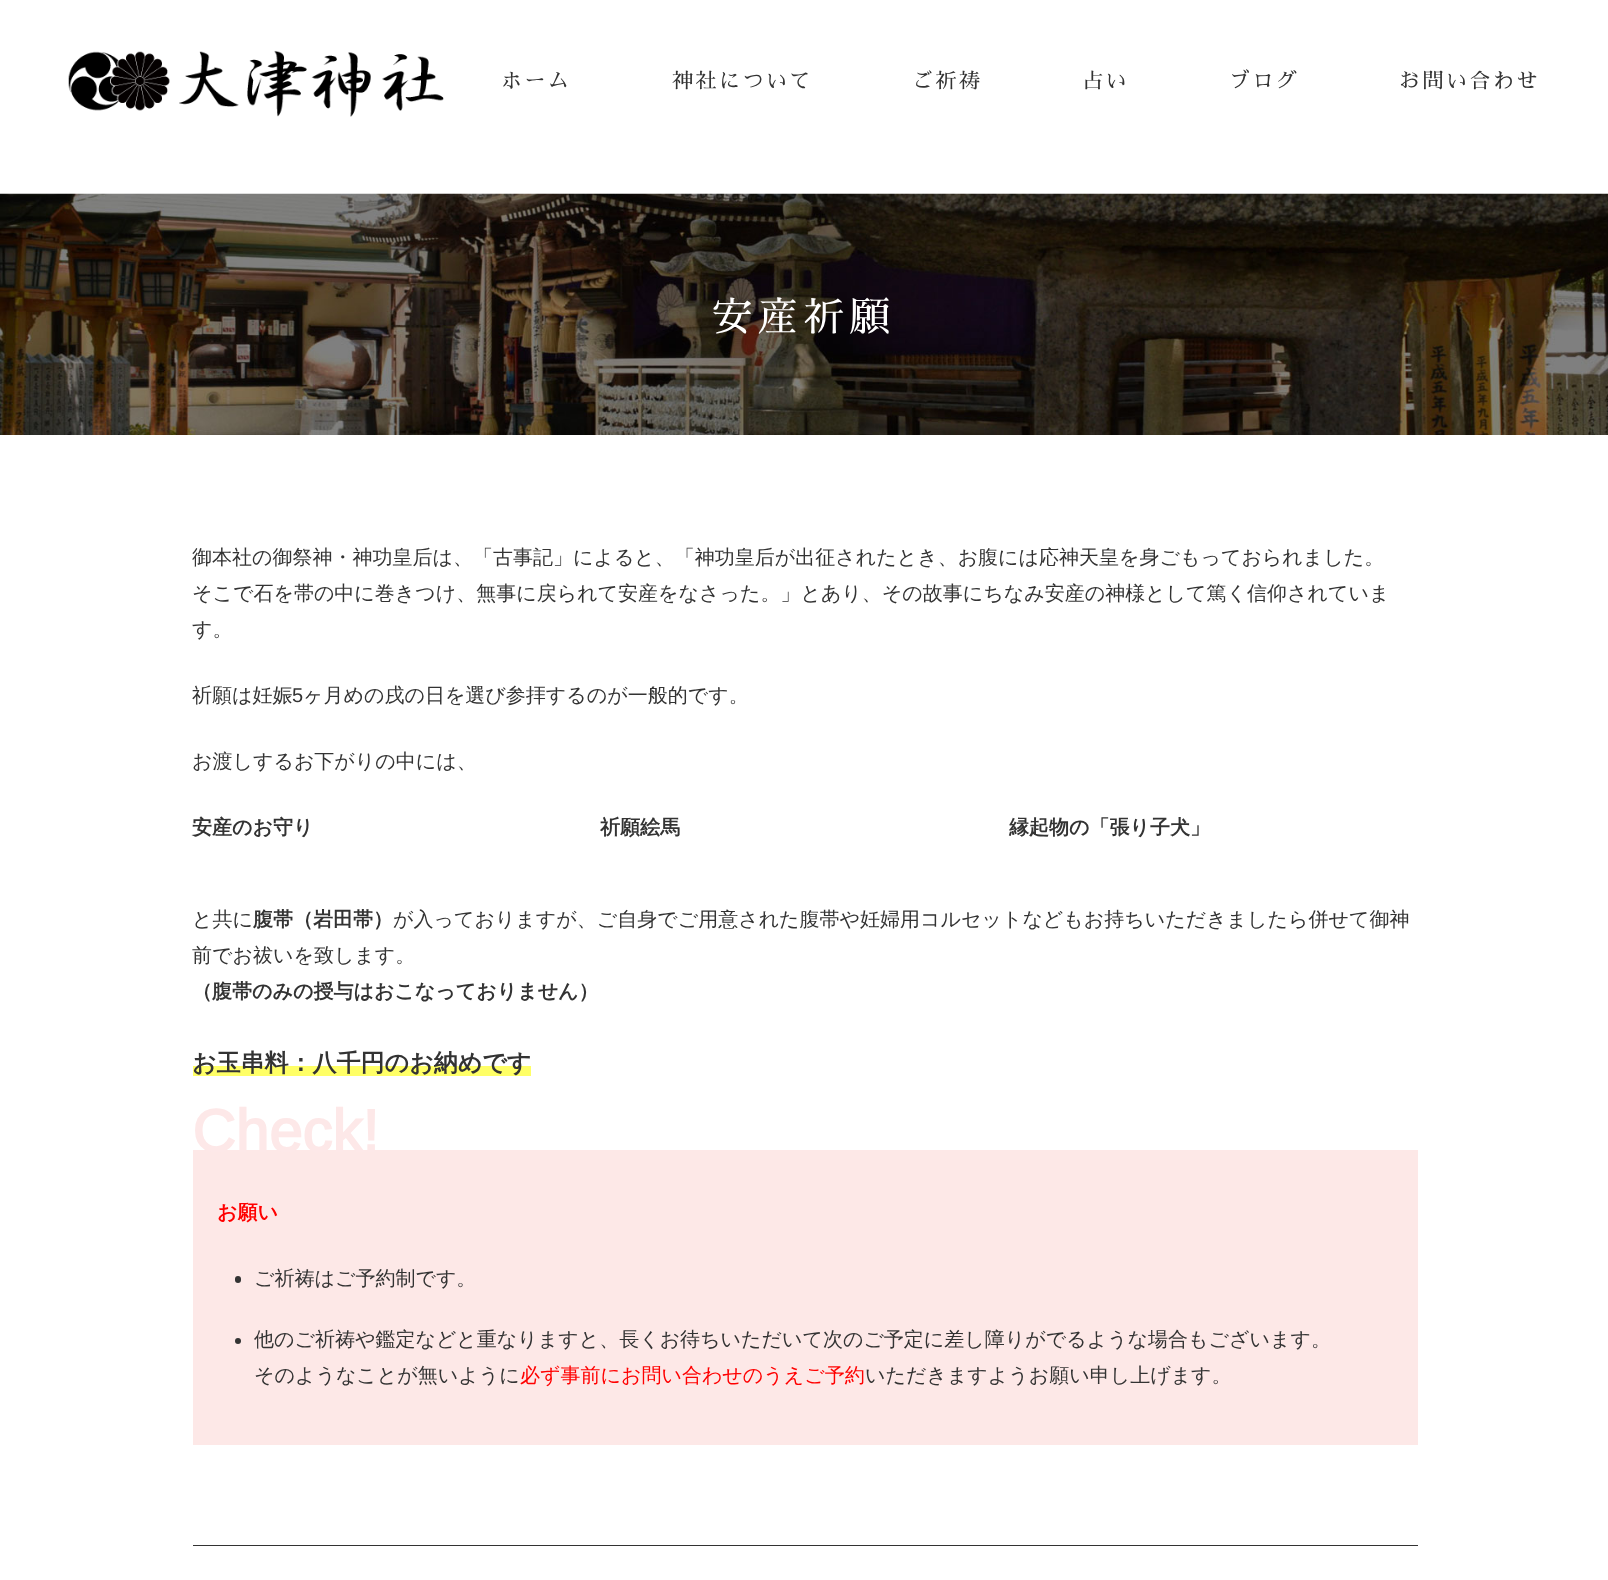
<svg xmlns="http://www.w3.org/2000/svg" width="1608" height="1580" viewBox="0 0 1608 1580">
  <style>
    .t1 { font: 21px Sawarabi Mincho; letter-spacing: 2.5px; fill: #333; }
    .t2 { font: 40px Sawarabi Mincho; letter-spacing: 6px; fill: #fff; }
    .t3 { font: 500 20px WenQuanYi Zen Hei; fill: #333; }
    .t4 { font: 20px Arimo; fill: #333; }
    .t5 { font: bold 20px WenQuanYi Zen Hei; fill: #333; }
    .t6 { font: bold 24px WenQuanYi Zen Hei; fill: #333; }
    .t7 { font: bold 60px Arimo; fill: #fde8e8; }
    .t8 { font: bold 20px WenQuanYi Zen Hei; fill: #f00; }
    .t9 { font: 500 20px WenQuanYi Zen Hei; fill: #f00; }
  </style>
  <rect width="100%" height="100%" fill="#fff"/>
  <image x="68" y="50" width="376" height="67" href="images/1.png"/>
  <text x="501" y="88" class="t1">ホーム</text>
  <text x="672" y="88" class="t1">神社について</text>
  <text x="912" y="88" class="t1">ご祈祷</text>
  <text x="1082" y="88" class="t1">占い</text>
  <text x="1229" y="88" class="t1">ブログ</text>
  <text x="1399" y="88" class="t1">お問い合わせ</text>
  <image x="0" y="193" width="1608" height="242" href="images/2.png"/>
  <text x="712" y="331" class="t2">安産祈願</text>
  <text x="192" y="564" class="t3">御本社の御祭神・神功皇后は、「古事記」によると、「神功皇后が出征されたとき、お腹には応神天皇を身ごもっておられました。</text>
  <text x="192" y="600" class="t3">そこで石を帯の中に巻きつけ、無事に戻られて安産をなさった。」とあり、その故事にちなみ安産の神様として篤く信仰されていま</text>
  <text x="192" y="636" class="t3">す。</text>
  <text x="192" y="702" class="t3">祈願は妊娠</text>
  <text x="292" y="702" class="t4">5</text>
  <text x="303" y="702" class="t3">ヶ月めの戌の日を選び参拝するのが一般的です。</text>
  <text x="192" y="768" class="t3">お渡しするお下がりの中には、</text>
  <text x="192" y="834" class="t5">安産のお守り</text>
  <text x="600" y="834" class="t5">祈願絵馬</text>
  <text x="1009" y="834" class="t5">縁起物の「張り子犬」</text>
  <text x="192" y="926" class="t3">と共に</text>
  <text x="253" y="926" class="t5">腹帯（岩田帯）</text>
  <text x="393" y="926" class="t3">が入っておりますが、ご自身でご用意された腹帯や妊婦用コルセットなどもお持ちいただきましたら併せて御神</text>
  <text x="192" y="962" class="t3">前でお祓いを致します。</text>
  <text x="192" y="998" class="t5">（腹帯のみの授与はおこなっておりません）</text>
  <rect x="193" y="1066" width="338" height="10" fill="#ff6"/>
  <text x="192" y="1071" class="t6">お玉串料：八千円のお納めです</text>
  <rect x="193" y="1150" width="1225" height="295" fill="#fde8e7"/>
  <text x="192" y="1152" class="t7">Check!</text>
  <text x="217" y="1219" class="t8">お願い</text>
  <rect x="235" y="1276" width="6" height="7" rx="3" fill="#333"/>
  <text x="254" y="1285" class="t3">ご祈祷はご予約制です。</text>
  <circle cx="238" cy="1341" r="3" fill="#333"/>
  <text x="254" y="1346" class="t3">他のご祈祷や鑑定などと重なりますと、長くお待ちいただいて次のご予定に差し障りがでるような場合もございます。</text>
  <text x="254" y="1382" class="t3">そのようなことが無いように</text>
  <text x="520" y="1382" class="t9">必ず事前にお問い合わせのうえご予約</text>
  <text x="865" y="1382" class="t3">いただきますようお願い申し上げます。</text>
  <rect x="193" y="1545" width="1225" height="1" fill="#333"/>
</svg>
